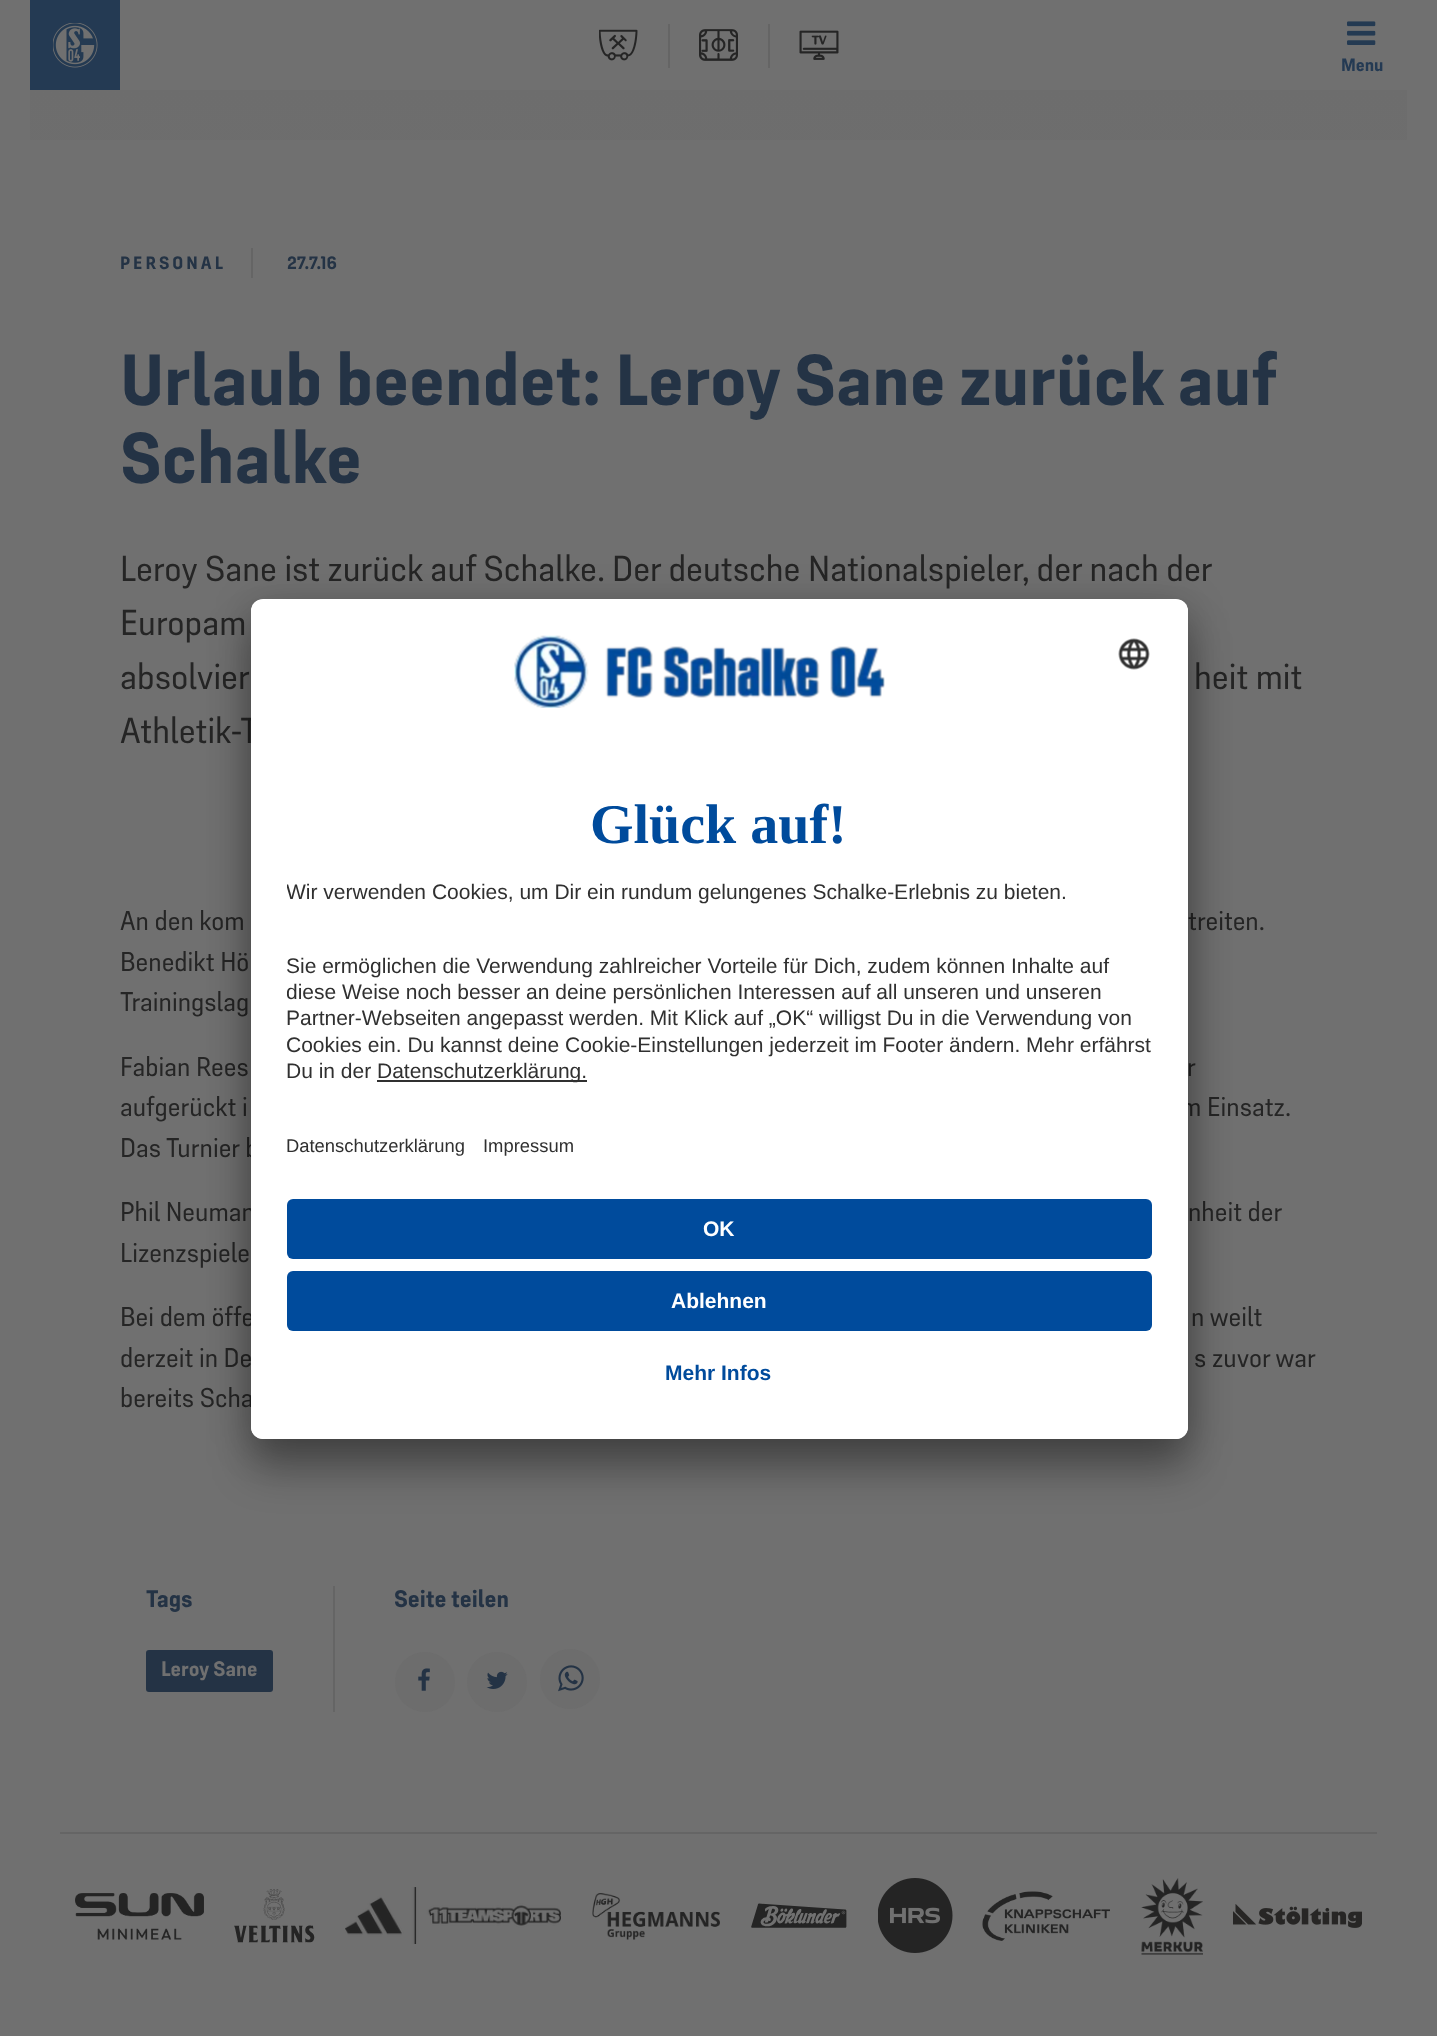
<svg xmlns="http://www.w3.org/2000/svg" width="1437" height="2036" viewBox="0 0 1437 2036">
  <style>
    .t1 { font: bold 18px 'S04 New'; fill: #243a53; }
    .t2 { font: bold 18px 'S04 New'; letter-spacing: 3px; fill: #243345; }
    .t3 { font: bold 18px 'S04 New'; fill: #243345; }
    .t4 { font: bold 72px 'S04 New'; fill: #243345; }
    .t5 { font: 36px 'S04 New'; fill: #252525; }
    .t6 { font: 27px 'S04 New'; fill: #252525; }
    .t7 { font: bold 24px 'S04 New'; fill: #243345; }
    .t8 { font: bold 21px 'S04 New'; fill: #707070; }
    .t9 { font: bold 56px Liberation Serif; fill: #004b9c; }
    .t10 { font: 21px Liberation Sans; fill: #303030; }
    .t11 { font: 18.4px Liberation Sans; fill: #303030; }
    .t12 { font: bold 21px Liberation Sans; fill: #fff; }
    .t13 { font: bold 21px Liberation Sans; fill: #004b9c; }
  </style>
  <defs>
    <linearGradient id="g1" gradientUnits="userSpaceOnUse" x1="719" y1="90" x2="719" y2="390"><stop offset="0" stop-color="#6d6d6d"/><stop offset="1" stop-color="#707070"/></linearGradient>
    <clipPath id="clip1"><rect x="251" y="599" width="937" height="840" rx="12"/></clipPath>
    <clipPath id="clip2"><path d="M263 599H1176C1182.5 599 1188 604.5 1188 611V1181H251V611C251 604.5 256.5 599 263 599Z"/></clipPath>
    <clipPath id="clip3"><rect x="287" y="756" width="865" height="356"/></clipPath>
  </defs>
  <rect width="100%" height="100%" fill="#707070"/>
  <rect x="30" y="0" width="90" height="90" fill="#243a53"/>
  <image x="53" y="23" width="45" height="45" href="images/1.png"/>
  <rect x="668" y="24" width="2" height="44" fill="#656565"/>
  <image x="599" y="29" width="39" height="32" href="images/2.png"/>
  <rect x="768" y="24" width="2" height="44" fill="#656565"/>
  <image x="699" y="29" width="39" height="32" href="images/3.png"/>
  <image x="799" y="30" width="40" height="30" href="images/4.png"/>
  <image x="1347" y="21" width="29" height="24" href="images/5.png"/>
  <text x="1341" y="71" class="t1">Menu</text>
  <rect x="30" y="90" width="1377" height="50" fill="url(#g1)"/>
  <rect x="251" y="248" width="2" height="30" fill="#656565"/>
  <text x="120" y="269" class="t2">PERSONAL</text>
  <text x="287" y="269" class="t3">27.7.16</text>
  <text x="120" y="405" word-spacing="-0.25" class="t4">Urlaub beendet: Leroy Sane zurück auf</text>
  <text x="120" y="483" class="t4">Schalke</text>
  <text x="120" y="581" class="t5">Leroy Sane ist zurück auf Schalke. Der deutsche Nationalspieler, der nach der</text>
  <text x="120" y="635" class="t5">Europam</text>
  <text x="120" y="689" class="t5">absolvier</text>
  <text x="1194" y="689" class="t5">heit mit</text>
  <text x="120" y="743" class="t5">Athletik-T</text>
  <text x="120" y="930" class="t6">An den kom</text>
  <text x="1188" y="930" class="t6">treiten.</text>
  <text x="120" y="971" class="t6">Benedikt Hö</text>
  <text x="120" y="1011" class="t6">Trainingslag</text>
  <text x="120" y="1076" class="t6">Fabian Rees</text>
  <text x="1187" y="1076" class="t6">r</text>
  <text x="120" y="1116" class="t6">aufgerückt i</text>
  <text x="1181" y="1116" class="t6">m Einsatz.</text>
  <text x="120" y="1157" class="t6">Das Turnier b</text>
  <text x="120" y="1221" class="t6">Phil Neuman</text>
  <text x="1188" y="1221" class="t6">nheit der</text>
  <text x="120" y="1262" class="t6">Lizenzspiele</text>
  <text x="120" y="1326" class="t6">Bei dem öffe</text>
  <text x="1191" y="1326" class="t6">n weilt</text>
  <text x="120" y="1367" class="t6">derzeit in De</text>
  <text x="1194" y="1367" class="t6">s zuvor war</text>
  <text x="120" y="1407" class="t6">bereits Scha</text>
  <rect x="333" y="1586" width="2" height="126" fill="#656565"/>
  <text x="146" y="1607" class="t7">Tags</text>
  <rect x="146" y="1650" width="127" height="42" rx="3" fill="#243345"/>
  <text x="161" y="1676" class="t8">Leroy Sane</text>
  <text x="394" y="1607" class="t7">Seite teilen</text>
  <circle cx="425" cy="1682" r="30" fill="#6d6d6d"/>
  <image x="418" y="1668" width="12" height="23" href="images/6.png"/>
  <circle cx="497" cy="1682" r="30" fill="#6d6d6d"/>
  <image x="486" y="1671" width="22" height="18" href="images/7.png"/>
  <circle cx="570" cy="1679" r="30" fill="#6d6d6d"/>
  <image x="558" y="1665" width="26" height="27" href="images/8.png"/>
  <rect x="60" y="1832" width="1317" height="2" fill="#656565"/>
  <image x="75" y="1893" width="129" height="47" href="images/9.png"/>
  <image x="234" y="1889" width="81" height="54" href="images/10.png"/>
  <image x="345" y="1887" width="216" height="57" href="images/11.png"/>
  <image x="592" y="1893" width="128" height="47" href="images/12.png"/>
  <image x="751" y="1903" width="96" height="25" href="images/13.png"/>
  <image x="878" y="1878" width="75" height="75" href="images/14.png"/>
  <image x="982" y="1891" width="128" height="50" href="images/15.png"/>
  <image x="1141" y="1878" width="62" height="77" href="images/16.png"/>
  <image x="1233" y="1904" width="129" height="24" href="images/17.png"/>
  <rect x="251" y="629" width="937" height="840" rx="12" fill="#0000004d" filter="blur(21px)"/>
  <rect x="251" y="606" width="937" height="840" rx="12" fill="#00000038" filter="blur(19.5px)"/>
  <rect x="251" y="599" width="937" height="840" rx="12" fill="#fff"/>
  <g clip-path="url(#clip1)">
    <g clip-path="url(#clip2)">
      <rect x="251" y="600" width="937" height="581" fill="#fff"/>
    </g>
  </g>
  <image x="514" y="635" width="371" height="73" href="images/18.png"/>
  <image x="1118" y="638" width="32" height="32" href="images/19.png"/>
  <text x="590" y="843" class="t9">Glück auf!</text>
  <g clip-path="url(#clip3)">
    <text x="286" y="899" class="t10">Wir verwenden Cookies, um Dir ein rundum gelungenes Schalke-Erlebnis zu bieten.</text>
  </g>
  <text x="286" y="973" class="t10">Sie ermöglichen die Verwendung zahlreicher Vorteile für Dich, zudem können Inhalte auf</text>
  <g clip-path="url(#clip3)">
    <text x="286" y="999" class="t10">diese Weise noch besser an deine persönlichen Interessen auf all unseren und unseren</text>
  </g>
  <text x="286" y="1025" class="t10">Partner-Webseiten angepasst werden. Mit Klick auf „OK“ willigst Du in die Verwendung von</text>
  <g clip-path="url(#clip3)">
    <text x="286" y="1052" class="t10">Cookies ein. Du kannst deine Cookie-Einstellungen jederzeit im Footer ändern. Mehr erfährst</text>
  </g>
  <text x="286" y="1078" class="t10">Du in der</text>
  <rect x="377" y="1080" width="210" height="2" fill="#303030"/>
  <text x="377" y="1078" class="t10">Datenschutzerklärung.</text>
  <text x="286" y="1152" class="t11">Datenschutzerklärung</text>
  <text x="483" y="1152" class="t11">Impressum</text>
  <path d="M251 1181H1188V1427C1188 1433.5 1182.5 1439 1176 1439H263C256.5 1439 251 1433.5 251 1427Z" fill="#fff"/>
  <rect x="287" y="1199" width="865" height="60" rx="6" fill="#004b9c"/>
  <text x="703" y="1236" class="t12">OK</text>
  <rect x="287" y="1271" width="865" height="60" rx="6" fill="#004b9c"/>
  <text x="671" y="1308" class="t12">Ablehnen</text>
  <text x="665" y="1380" class="t13">Mehr Infos</text>
</svg>
